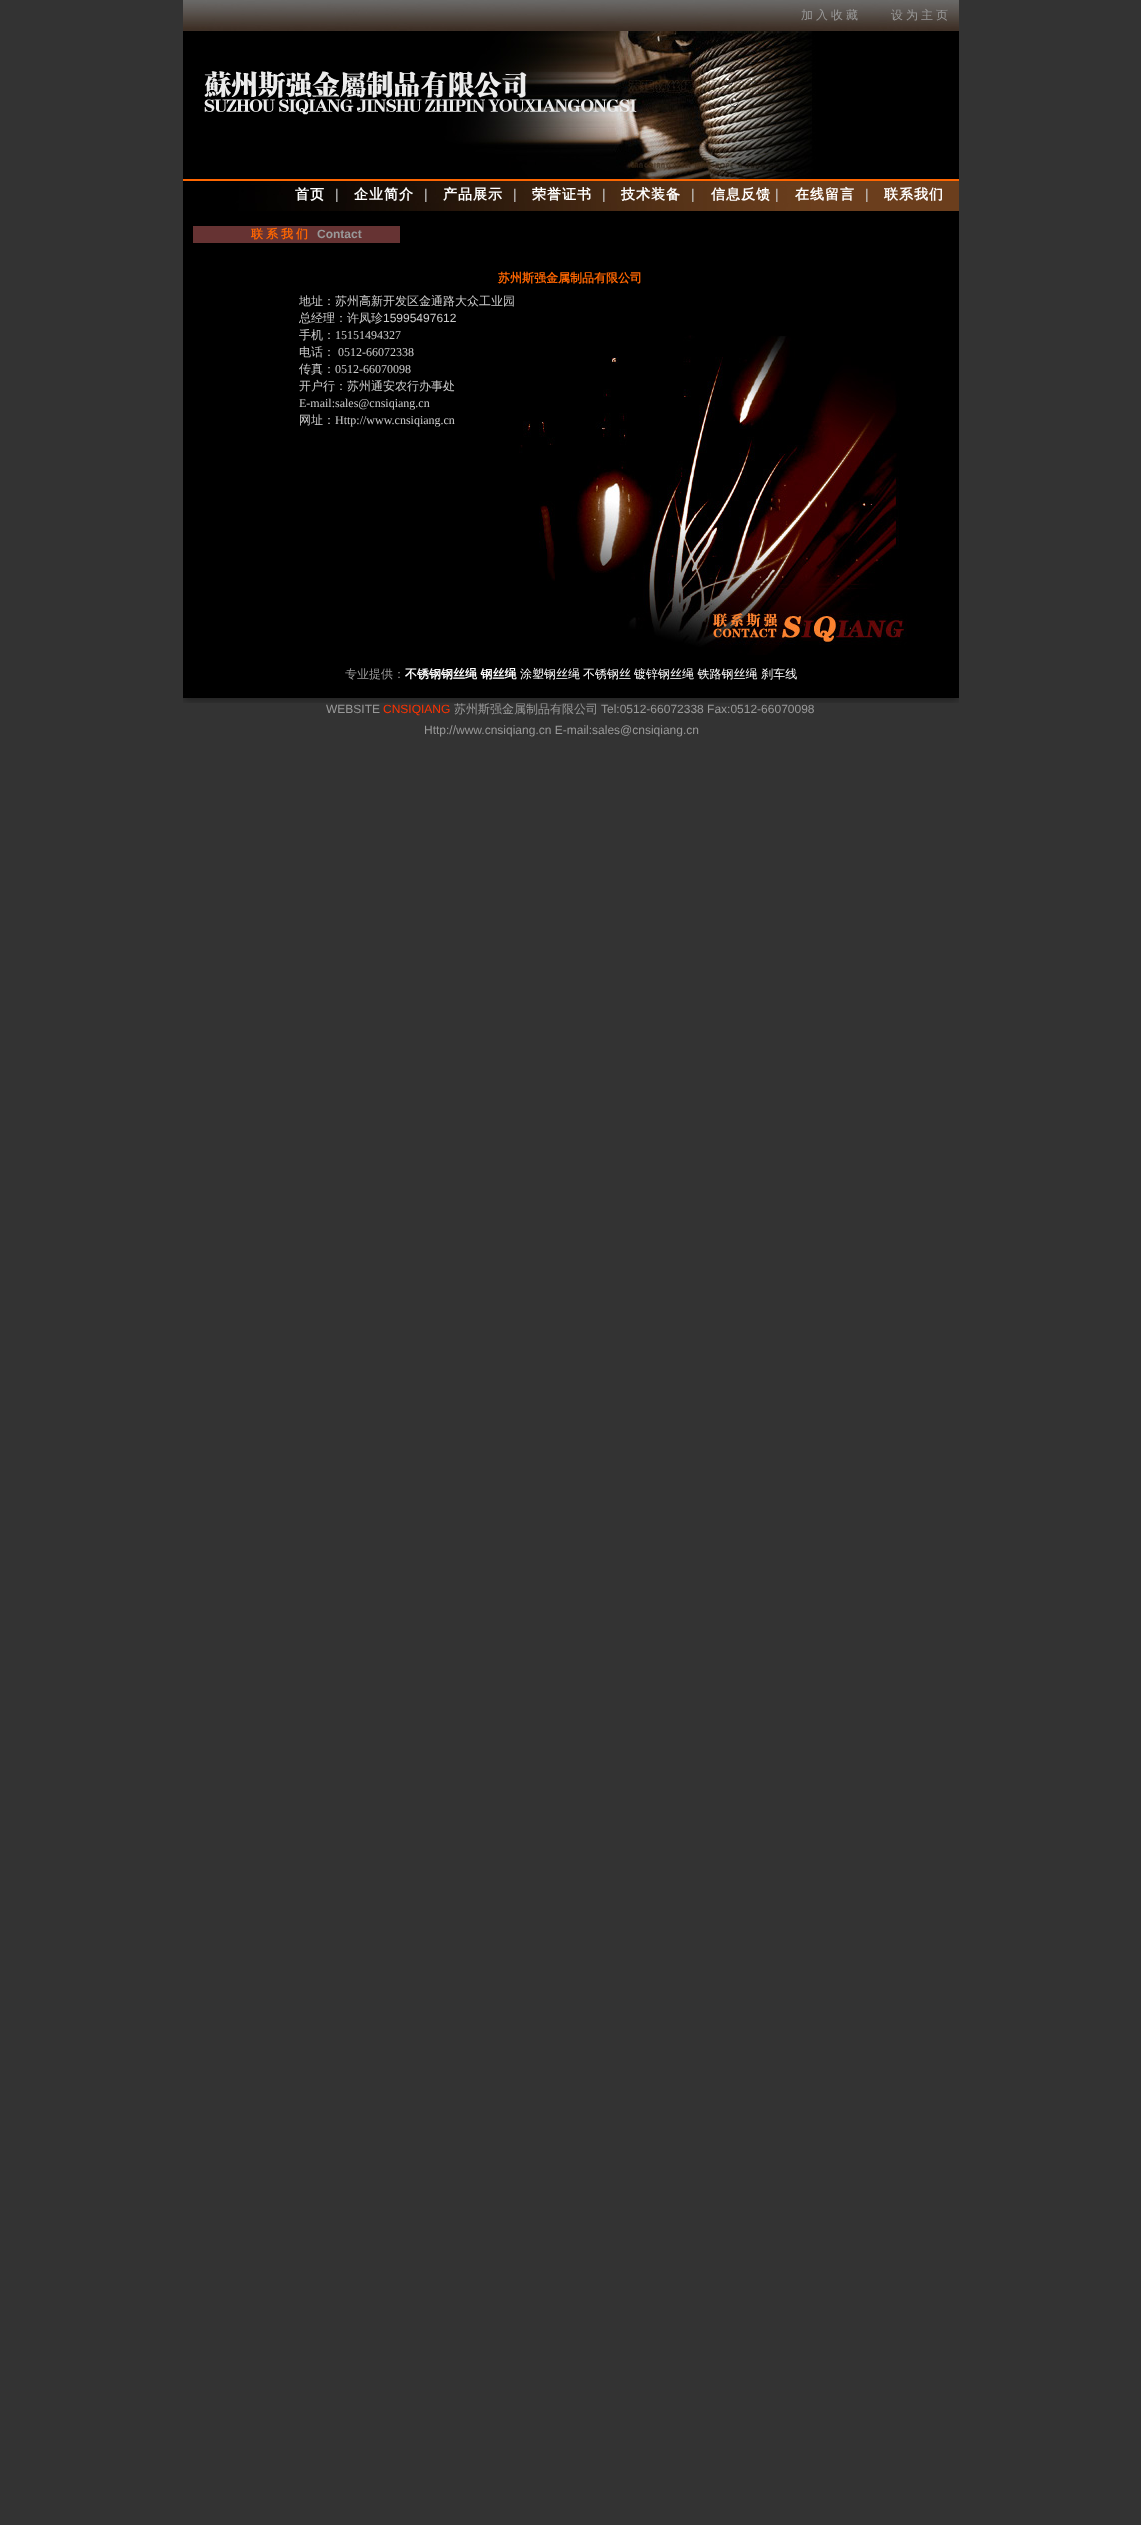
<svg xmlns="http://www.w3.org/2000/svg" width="1141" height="2525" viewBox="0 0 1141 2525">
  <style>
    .t1 { font: 500 12px WenQuanYi Zen Hei; letter-spacing: 3px; fill: #999; }
    .t2 { font: bold 14px WenQuanYi Zen Hei; letter-spacing: 1px; fill: #fff; }
    .t3 { font: 14px Liberation Sans; letter-spacing: 1px; fill: #ccc; }
    .t4 { font: bold 12px WenQuanYi Zen Hei; letter-spacing: 3px; fill: #f60; }
    .t5 { font: bold 12px Liberation Sans; fill: #999; }
    .t6 { font: bold 12px WenQuanYi Zen Hei; fill: #f60; }
    .t7 { font: 500 12px WenQuanYi Zen Hei; fill: #ccc; }
    .t8 { font: 12px Liberation Sans; fill: #ccc; }
    .t9 { font: 12px Liberation Serif; fill: #ccc; }
    .t10 { font: 500 12px WenQuanYi Zen Hei; fill: #999; }
    .t11 { font: bold 12px WenQuanYi Zen Hei; fill: #fff; }
    .t12 { font: 500 12px WenQuanYi Zen Hei; fill: #fff; }
    .t13 { font: 12px Liberation Sans; fill: #999; }
    .t14 { font: 12px Liberation Sans; fill: #f30; }
  </style>
  <rect width="100%" height="100%" fill="#333"/>
  <image x="183" y="0" width="776" height="30" href="images/1.png"/>
  <text x="801" y="19" class="t1">加入收藏</text>
  <text x="891" y="19" class="t1">设为主页</text>
  <image x="183" y="30" width="776" height="149" href="images/2.png"/>
  <image x="183" y="179" width="776" height="32" href="images/3.png"/>
  <text x="295" y="199" class="t2">首页</text>
  <text x="335" y="199" class="t3">|</text>
  <text x="354" y="199" class="t2">企业简介</text>
  <text x="424" y="199" class="t3">|</text>
  <text x="443" y="199" class="t2">产品展示</text>
  <text x="513" y="199" class="t3">|</text>
  <text x="532" y="199" class="t2">荣誉证书</text>
  <text x="602" y="199" class="t3">|</text>
  <text x="621" y="199" class="t2">技术装备</text>
  <text x="691" y="199" class="t3">|</text>
  <text x="711" y="199" class="t2">信息反馈</text>
  <text x="775" y="199" class="t3">|</text>
  <text x="795" y="199" class="t2">在线留言</text>
  <text x="865" y="199" class="t3">|</text>
  <text x="884" y="199" class="t2">联系我们</text>
  <rect x="183" y="211" width="776" height="482" fill="#000"/>
  <rect x="193" y="226" width="207" height="17" fill="#633"/>
  <text x="251" y="238" class="t4">联系我们</text>
  <text x="317" y="238" class="t5">Contact</text>
  <text x="498" y="282" class="t6">苏州斯强金属制品有限公司</text>
  <image x="519" y="335" width="388" height="320" href="images/4.png"/>
  <text x="299" y="305" class="t7">地址：苏州高新开发区金通路大众工业园</text>
  <text x="299" y="322" class="t7">总经理：许凤珍</text>
  <text x="383" y="322" class="t8">15995497612</text>
  <text x="299" y="339" class="t7">手机：</text>
  <text x="335" y="339" class="t9">15151494327</text>
  <text x="299" y="356" class="t7">电话：</text>
  <text x="338" y="356" class="t9">0512-66072338</text>
  <text x="299" y="373" class="t7">传真：</text>
  <text x="335" y="373" class="t9">0512-66070098</text>
  <text x="299" y="390" class="t7">开户行：苏州通安农行办事处</text>
  <text x="299" y="407" class="t9">E-mail:sales@cnsiqiang.cn</text>
  <text x="299" y="424" class="t7">网址：</text>
  <text x="335" y="424" class="t9">Http://www.cnsiqiang.cn</text>
  <text x="345" y="678" class="t10">专业提供：</text>
  <text x="405" y="678" class="t11">不锈钢钢丝绳 钢丝绳</text>
  <text x="520" y="678" class="t12">涂塑钢丝绳</text>
  <text x="583" y="678" class="t12">不锈钢丝</text>
  <text x="634" y="678" class="t12">镀锌钢丝绳 铁路钢丝绳 刹车线</text>
  <image x="183" y="693" width="776" height="10" href="images/5.png"/>
  <text x="326" y="713" class="t13">WEBSITE</text>
  <text x="383" y="713" class="t14">CNSIQIANG</text>
  <text x="454" y="713" class="t10">苏州斯强金属制品有限公司</text>
  <text x="601" y="713" class="t13">Tel:0512-66072338 Fax:0512-66070098</text>
  <text x="424" y="734" class="t13">Http://www.cnsiqiang.cn E-mail:sales@cnsiqiang.cn</text>
</svg>
